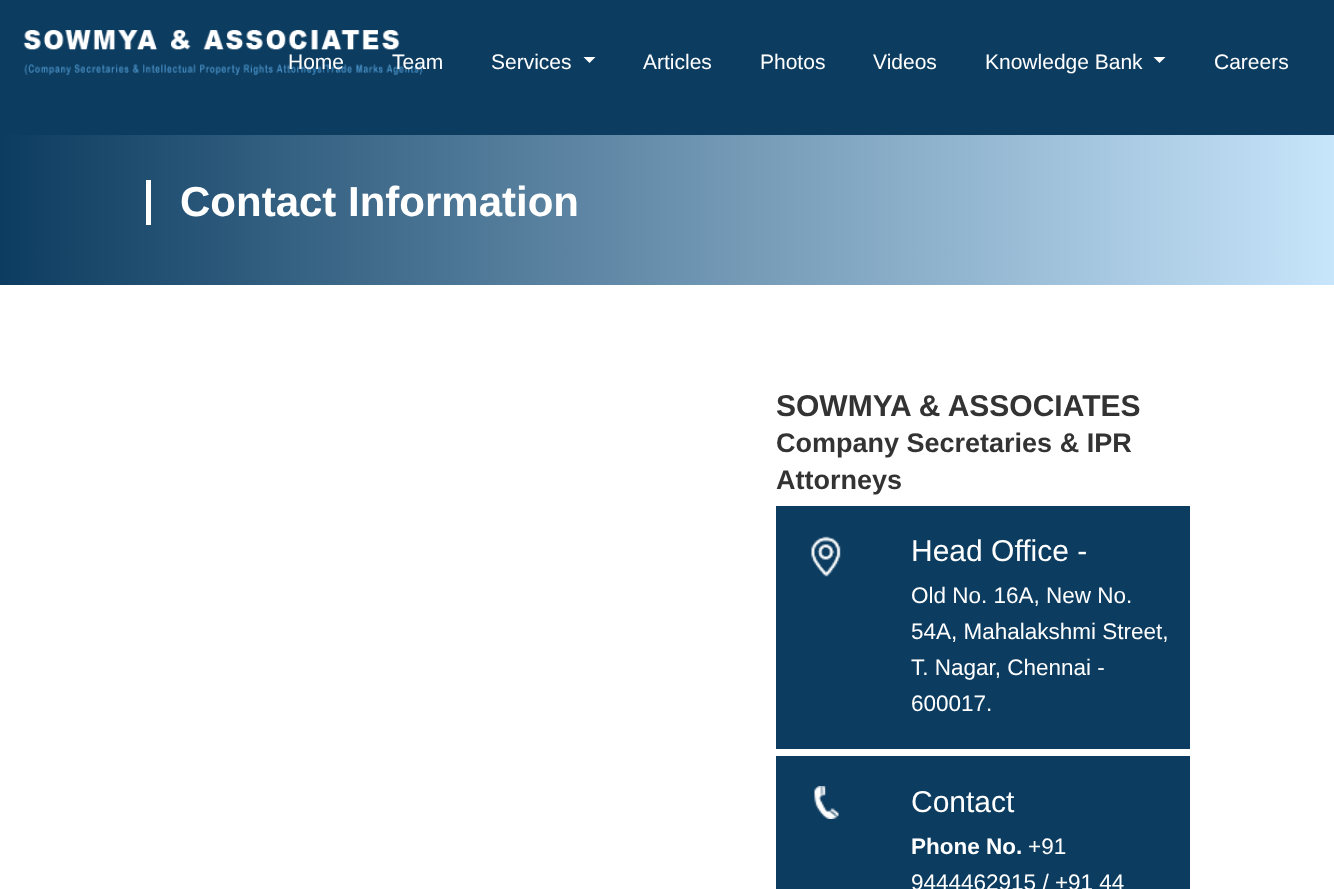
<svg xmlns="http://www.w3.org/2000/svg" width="1334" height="889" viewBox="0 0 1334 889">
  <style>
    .t1 { font: 21px Liberation Sans; fill: #fff; }
    .t2 { font: bold 42px Liberation Sans; fill: #fff; }
    .t3 { font: bold 30px Liberation Sans; fill: #333; }
    .t4 { font: bold 27px Liberation Sans; fill: #333; }
    .t5 { font: 30px Liberation Sans; fill: #fff; }
    .t6 { font: 22.5px Liberation Sans; fill: #fff; }
    .t7 { font: bold 22.5px Liberation Sans; fill: #fff; }
  </style>
  <defs>
    <linearGradient id="g1" gradientUnits="userSpaceOnUse" x1="0" y1="210" x2="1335" y2="210"><stop offset="0" stop-color="#0c3c60"/><stop offset="1" stop-color="#c7e5fb"/></linearGradient>
  </defs>
  <rect width="100%" height="100%" fill="#fff"/>
  <rect x="0" y="0" width="1334" height="135" fill="#0c3c60"/>
  <image x="23" y="30" width="400" height="46" href="images/1.png"/>
  <text x="288" y="69" class="t1">Home</text>
  <text x="392" y="69" class="t1">Team</text>
  <text x="491" y="69" class="t1">Services</text>
  <path d="M583.5 57H595.5L589.5 63Z" fill="#fff"/>
  <text x="643" y="69" class="t1">Articles</text>
  <text x="760" y="69" class="t1">Photos</text>
  <text x="873" y="69" class="t1">Videos</text>
  <text x="985" y="69" class="t1">Knowledge Bank</text>
  <path d="M1153.5 57H1165.5L1159.5 63Z" fill="#fff"/>
  <text x="1214" y="69" class="t1">Careers</text>
  <rect x="0" y="135" width="1334" height="150" fill="url(#g1)"/>
  <rect x="146" y="180" width="5" height="45" fill="#fff"/>
  <text x="180" y="216" class="t2">Contact Information</text>
  <text x="776" y="416" class="t3">SOWMYA &amp; ASSOCIATES</text>
  <text x="776" y="452" class="t4">Company Secretaries &amp; IPR</text>
  <text x="776" y="489" class="t4">Attorneys</text>
  <rect x="776" y="506" width="414" height="243" fill="#0c3c60"/>
  <image x="811" y="536" width="30" height="41" href="images/2.png"/>
  <text x="911" y="561" class="t5">Head Office -</text>
  <text x="911" y="603" class="t6">Old No. 16A, New No.</text>
  <text x="911" y="639" class="t6">54A, Mahalakshmi Street,</text>
  <text x="911" y="675" class="t6">T. Nagar, Chennai -</text>
  <text x="911" y="711" class="t6">600017.</text>
  <rect x="776" y="756" width="414" height="133" fill="#0c3c60"/>
  <image x="814" y="786" width="25" height="33" href="images/3.png"/>
  <text x="911" y="812" class="t5">Contact</text>
  <text x="911" y="854" class="t7">Phone No.</text>
  <text x="1028" y="854" class="t6">+91</text>
  <text x="911" y="890" class="t6">9444462915 / +91 44</text>
</svg>
